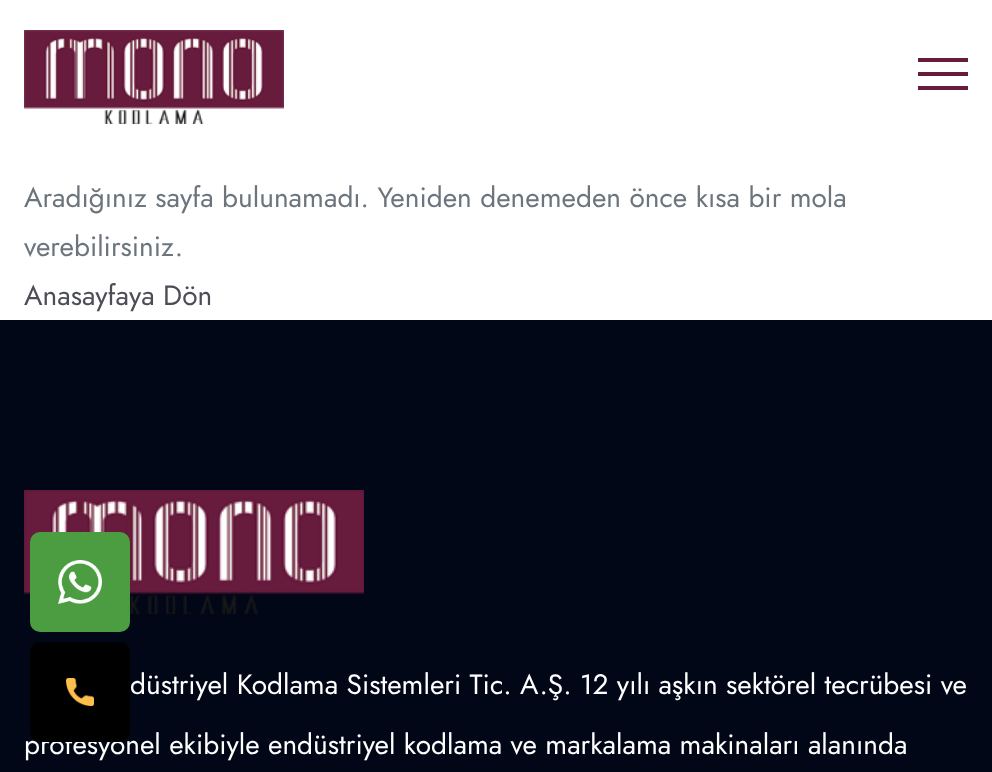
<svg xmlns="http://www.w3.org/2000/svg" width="992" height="772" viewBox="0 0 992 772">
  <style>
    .t1 { font: 28px Jost; fill: #6c757d; }
    .t2 { font: 28px Jost; fill: #4c4d56; }
    .t3 { font: 28px Jost; fill: #fff; }
  </style>
  <rect width="100%" height="100%" fill="#fff"/>
  <image x="24" y="30" width="260" height="94" href="images/1.png"/>
  <rect x="918" y="58" width="50" height="4" fill="#671b3d"/>
  <rect x="918" y="72" width="50" height="4" fill="#671b3d"/>
  <rect x="918" y="86" width="50" height="4" fill="#671b3d"/>
  <text x="24" y="207" class="t1">Aradığınız sayfa bulunamadı. Yeniden denemeden önce kısa bir mola</text>
  <text x="24" y="256" class="t1">verebilirsiniz.</text>
  <text x="24" y="305" class="t2">Anasayfaya Dön</text>
  <rect x="0" y="320" width="992" height="452" fill="#010717"/>
  <image x="24" y="490" width="340" height="124" href="images/2.png"/>
  <text x="130" y="694" class="t3">düstriyel Kodlama Sistemleri Tic. A.Ş. 12 yılı aşkın sektörel tecrübesi ve</text>
  <text x="24" y="754" class="t3">profesyonel ekibiyle endüstriyel kodlama ve markalama makinaları alanında</text>
  <rect x="30" y="532" width="100" height="100" rx="10" fill="#4c9d41"/>
  <image x="58" y="560" width="44" height="44" href="images/3.png"/>
  <rect x="30" y="642" width="100" height="100" rx="10" fill="#000"/>
  <image x="66" y="678" width="28" height="28" href="images/4.png"/>
</svg>
